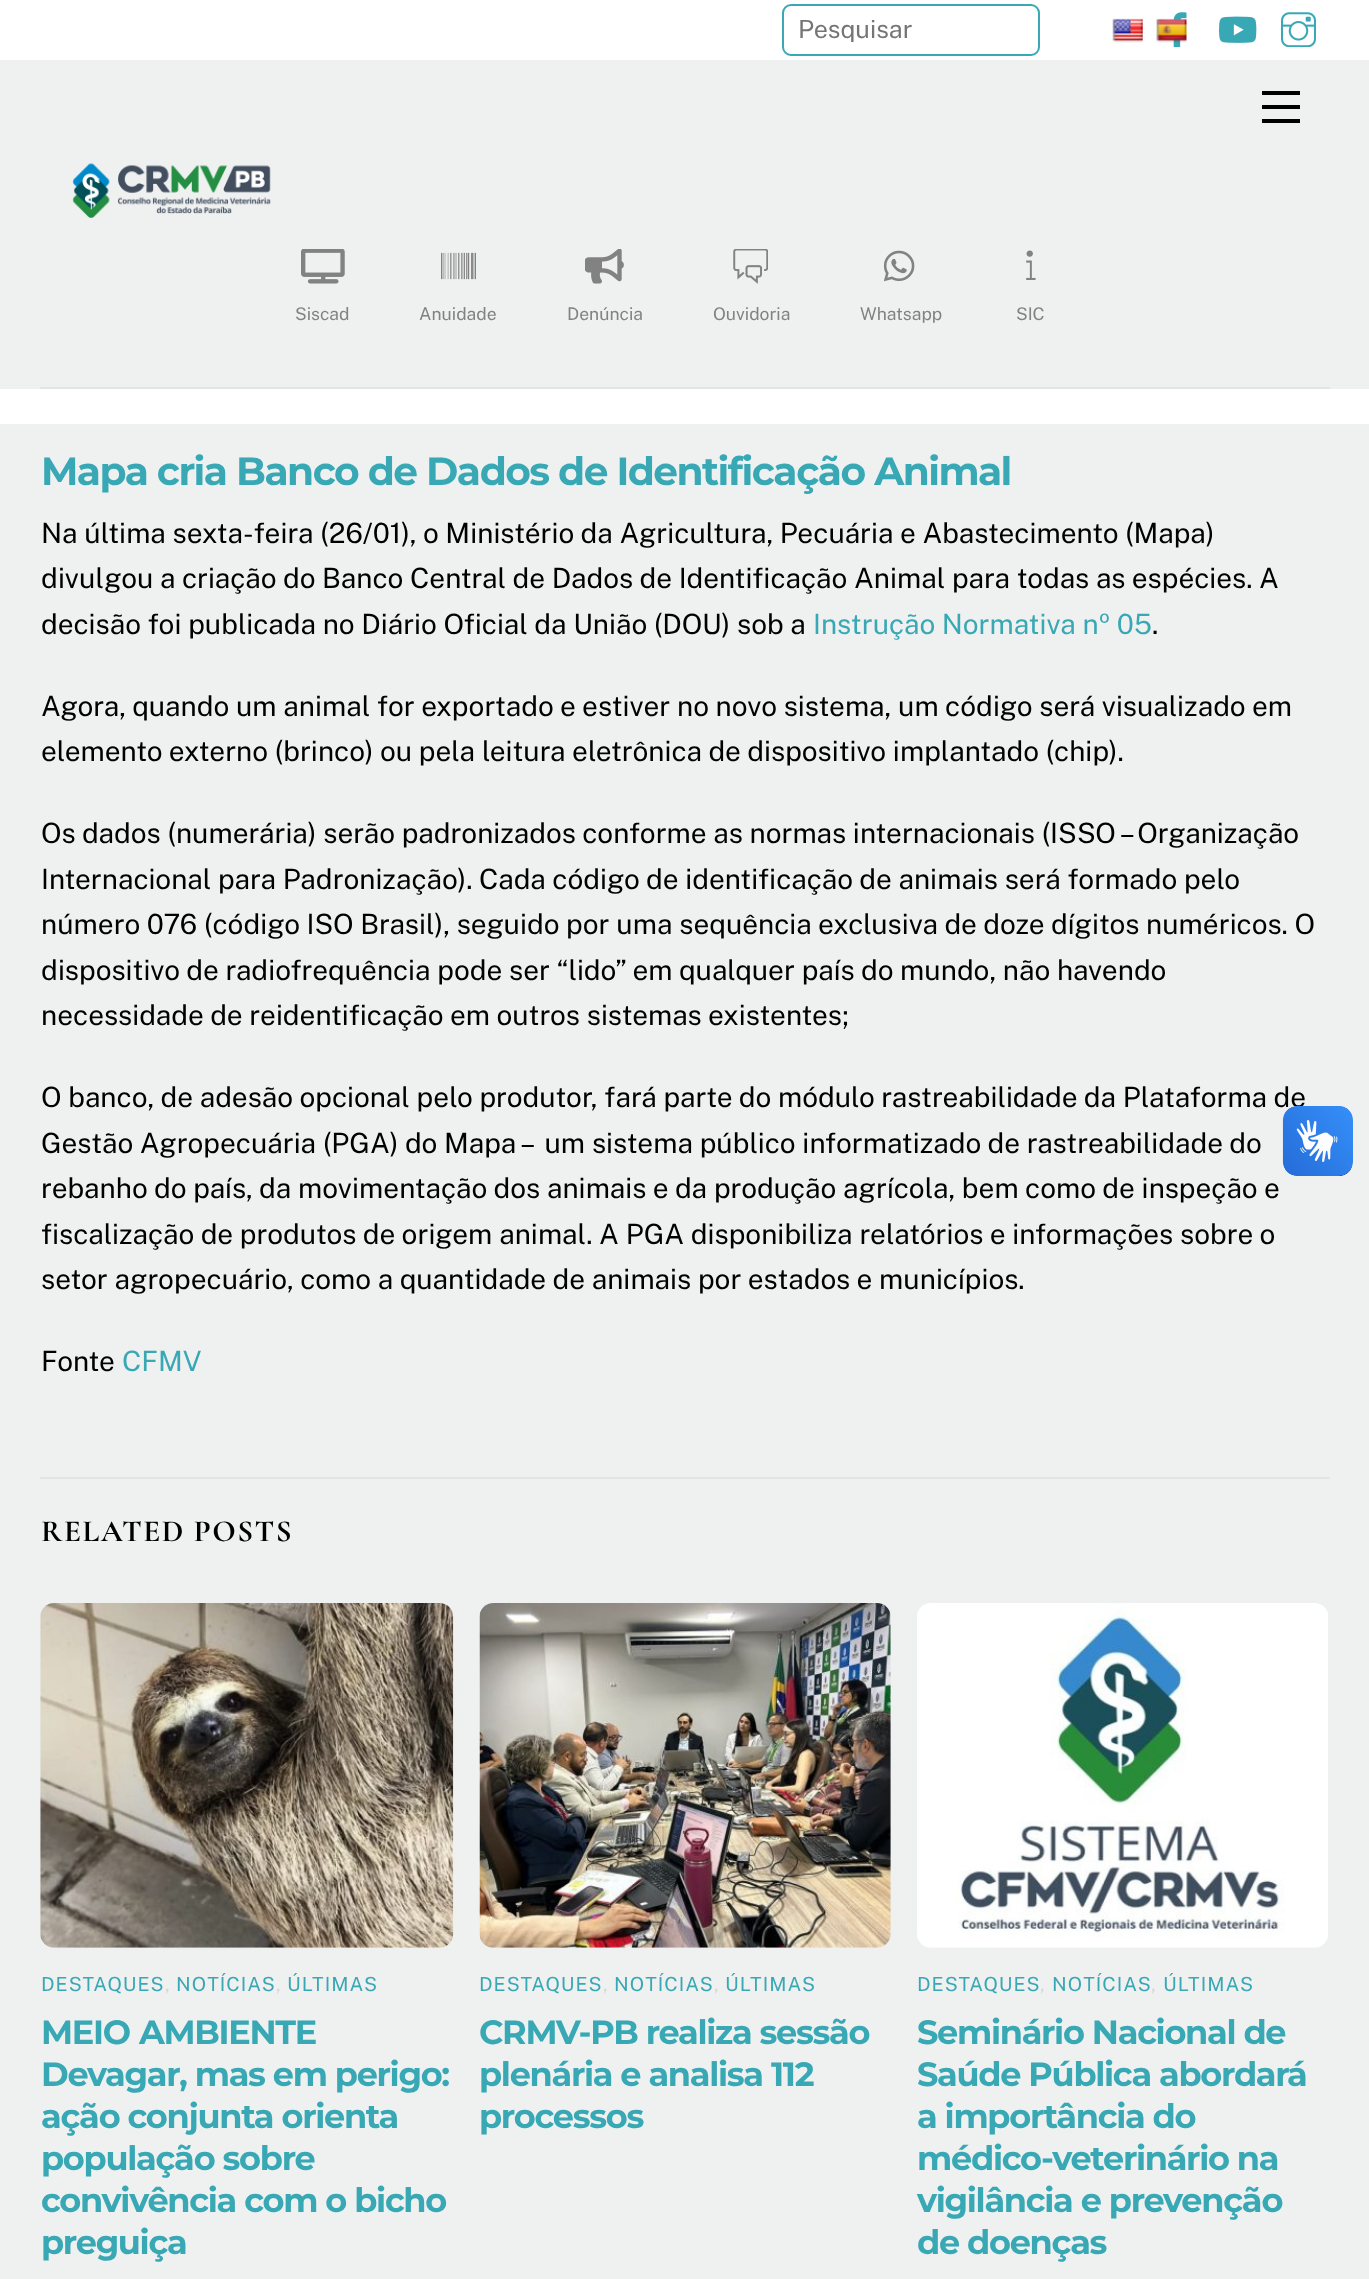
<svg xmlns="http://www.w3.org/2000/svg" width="1369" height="2279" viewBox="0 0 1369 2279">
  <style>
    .t1 { font: 25px Public Sans; fill: #757575; }
    .t2 { font: 17.5px Public Sans; fill: #828282; }
    .t3 { font: bold 39.2px Montserrat; letter-spacing: -1.55px; fill: #39a8b5; }
    .t4 { font: 28px Public Sans; fill: #000; }
    .t5 { font: 28px Public Sans; fill: #39a8b5; }
    .t6 { font: bold 30.75px Cormorant Garamond; letter-spacing: 1.5px; fill: #000; }
    .t7 { font: 19.5px Public Sans; letter-spacing: 1px; fill: #39a8b5; }
    .t8 { font: 19.5px Public Sans; letter-spacing: 1px; fill: #d7d9d9; }
    .t9 { font: bold 33.6px Montserrat; letter-spacing: -1.3px; fill: #39a8b5; }
  </style>
  <rect width="100%" height="100%" fill="#fff"/>
  <rect x="0" y="60" width="1369" height="329" fill="#eff1f1"/>
  <rect x="40" y="387" width="1290" height="2" fill="#e3e5e5"/>
  <image x="72" y="163" width="199" height="55" href="images/1.png"/>
  <rect x="783" y="5" width="256" height="50" rx="8" fill="none" stroke="#39a8b5" stroke-width="2"/>
  <text x="798" y="38" class="t1">Pesquisar</text>
  <image x="1112" y="18" width="31" height="25" href="images/2.png"/>
  <image x="1173" y="12" width="14" height="35" href="images/4.png"/>
  <image x="1156" y="18" width="31" height="25" href="images/3.png"/>
  <image x="1219" y="16" width="38" height="27" href="images/5.png"/>
  <image x="1281" y="12" width="35" height="35" href="images/6.png"/>
  <image x="301" y="249" width="44" height="35" href="images/7.png"/>
  <text x="295" y="320" class="t2">Siscad</text>
  <image x="441" y="252" width="35" height="28" href="images/8.png"/>
  <text x="419" y="320" class="t2">Anuidade</text>
  <image x="585" y="249" width="39" height="35" href="images/9.png"/>
  <text x="567" y="320" class="t2">Denúncia</text>
  <image x="733" y="249" width="35" height="35" href="images/10.png"/>
  <text x="713" y="320" class="t2">Ouvidoria</text>
  <image x="884" y="250" width="31" height="32" href="images/11.png"/>
  <text x="860" y="320" class="t2">Whatsapp</text>
  <image x="1026" y="250" width="10" height="30" href="images/12.png"/>
  <text x="1016" y="320" class="t2">SIC</text>
  <rect x="1262" y="119" width="38" height="4" fill="#000"/>
  <rect x="1262" y="91" width="38" height="4" fill="#000"/>
  <rect x="1262" y="105" width="38" height="4" fill="#000"/>
  <rect x="0" y="424" width="1369" height="1855" fill="#eff1f1"/>
  <text x="41" y="485" class="t3">Mapa cria Banco de Dados de Identificação Animal</text>
  <text x="41" y="543" class="t4">Na última sexta-feira (26/01), o Ministério da Agricultura, Pecuária e Abastecimento (Mapa)</text>
  <text x="41" y="588" class="t4">divulgou a criação do Banco Central de Dados de Identificação Animal para todas as espécies. A</text>
  <text x="41" y="634" class="t4">decisão foi publicada no Diário Oficial da União (DOU) sob a</text>
  <text x="813" y="634" class="t5">Instrução Normativa nº 05</text>
  <text x="1152" y="634" class="t4">.</text>
  <text x="41" y="716" class="t4">Agora, quando um animal for exportado e estiver no novo sistema, um código será visualizado em</text>
  <text x="41" y="761" class="t4">elemento externo (brinco) ou pela leitura eletrônica de dispositivo implantado (chip).</text>
  <text x="41" y="843" class="t4">Os dados (numerária) serão padronizados conforme as normas internacionais (ISSO – Organização</text>
  <text x="41" y="889" class="t4">Internacional para Padronização). Cada código de identificação de animais será formado pelo</text>
  <text x="41" y="934" class="t4">número 076 (código ISO Brasil), seguido por uma sequência exclusiva de doze dígitos numéricos. O</text>
  <text x="41" y="980" class="t4">dispositivo de radiofrequência pode ser “lido” em qualquer país do mundo, não havendo</text>
  <text x="41" y="1025" class="t4">necessidade de reidentificação em outros sistemas existentes;</text>
  <text x="41" y="1107" class="t4">O banco, de adesão opcional pelo produtor, fará parte do módulo rastreabilidade da Plataforma de</text>
  <text x="41" y="1153" class="t4" xml:space="preserve">Gestão Agropecuária (PGA) do Mapa –  um sistema público informatizado de rastreabilidade do</text>
  <text x="41" y="1198" class="t4">rebanho do país, da movimentação dos animais e da produção agrícola, bem como de inspeção e</text>
  <text x="41" y="1244" class="t4">fiscalização de produtos de origem animal. A PGA disponibiliza relatórios e informações sobre o</text>
  <text x="41" y="1289" class="t4">setor agropecuário, como a quantidade de animais por estados e municípios.</text>
  <text x="41" y="1371" class="t4">Fonte</text>
  <text x="122" y="1371" class="t5">CFMV</text>
  <rect x="40" y="1477" width="1290" height="2" fill="#e3e5e5"/>
  <text x="41" y="1541" class="t6">RELATED POSTS</text>
  <image x="40" y="1603" width="414" height="345" href="images/13.png"/>
  <text x="41" y="1991" class="t7">DESTAQUES</text>
  <text x="165" y="1991" class="t8">,</text>
  <text x="176" y="1991" class="t7">NOTÍCIAS</text>
  <text x="276" y="1991" class="t8">,</text>
  <text x="287" y="1991" class="t7">ÚLTIMAS</text>
  <text x="41" y="2044" word-spacing="1" class="t9">‌MEIO AMBIENTE</text>
  <text x="41" y="2086" class="t9">Devagar, mas em perigo:</text>
  <text x="41" y="2128" class="t9">ação conjunta orienta</text>
  <text x="41" y="2170" class="t9">população sobre</text>
  <text x="41" y="2212" class="t9">convivência com o bicho</text>
  <text x="41" y="2254" class="t9">preguiça</text>
  <image x="479" y="1603" width="412" height="345" href="images/14.png"/>
  <text x="479" y="1991" class="t7">DESTAQUES</text>
  <text x="603" y="1991" class="t8">,</text>
  <text x="614" y="1991" class="t7">NOTÍCIAS</text>
  <text x="714" y="1991" class="t8">,</text>
  <text x="725" y="1991" class="t7">ÚLTIMAS</text>
  <text x="479" y="2044" class="t9">CRMV-PB realiza sessão</text>
  <text x="479" y="2086" class="t9">plenária e analisa 112</text>
  <text x="479" y="2128" class="t9">processos</text>
  <image x="917" y="1603" width="411" height="345" href="images/15.png"/>
  <text x="917" y="1991" class="t7">DESTAQUES</text>
  <text x="1040" y="1991" class="t8">,</text>
  <text x="1052" y="1991" class="t7">NOTÍCIAS</text>
  <text x="1151" y="1991" class="t8">,</text>
  <text x="1163" y="1991" class="t7">ÚLTIMAS</text>
  <text x="917" y="2044" class="t9">Seminário Nacional de</text>
  <text x="917" y="2086" class="t9">Saúde Pública abordará</text>
  <text x="917" y="2128" class="t9">a importância do</text>
  <text x="917" y="2170" class="t9">médico-veterinário na</text>
  <text x="917" y="2212" class="t9">vigilância e prevenção</text>
  <text x="917" y="2254" class="t9">de doenças</text>
  <image x="1282" y="1106" width="71" height="70" href="images/16.png"/>
  <image x="1283" y="1106" width="70" height="70" href="images/17.png"/>
</svg>
